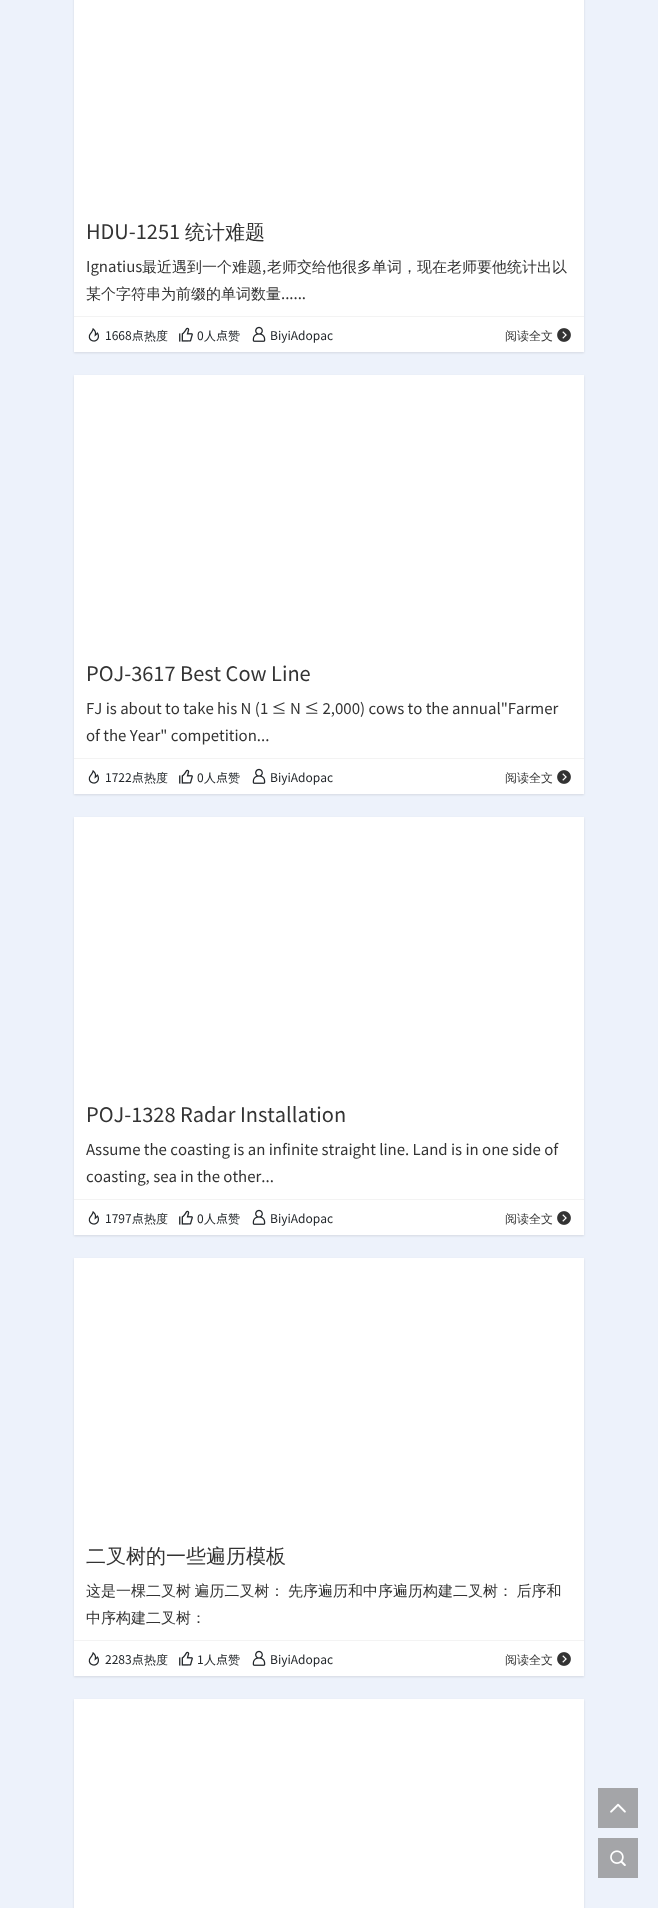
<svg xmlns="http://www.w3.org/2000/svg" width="658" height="1908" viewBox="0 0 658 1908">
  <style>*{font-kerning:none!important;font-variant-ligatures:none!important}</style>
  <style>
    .t1 { font: 100 20px Noto Sans JP; fill: #333; }
    .t2 { font: 500 20px WenQuanYi Zen Hei; fill: #333; }
    .t3 { font: 100 15px Noto Sans JP; fill: #333; }
    .t4 { font: 500 15px WenQuanYi Zen Hei; fill: #333; }
    .t5 { font: 100 12px Noto Sans JP; fill: #212529; }
    .t6 { font: 500 12px WenQuanYi Zen Hei; fill: #212529; }
    .t7 { font: 500 12px WenQuanYi Zen Hei; fill: #333; }
  </style>
  <rect width="100%" height="100%" fill="#edf2fb"/>
  <rect x="74" y="-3" width="510" height="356" fill="#0000001a" filter="blur(1px)"/>
  <rect x="74" y="0" width="510" height="352" fill="#fff"/>
  <text x="86" y="239" class="t1">HDU-1251</text>
  <text x="185" y="239" class="t2">统计难题</text>
  <text x="86" y="272" class="t3">Ignatius</text>
  <text x="142" y="272" class="t4">最近遇到一个难题</text>
  <text x="262" y="272" class="t3">,</text>
  <text x="267" y="272" class="t4">老师交给他很多单词，现在老师要他统计出以</text>
  <text x="86" y="299" class="t4">某个字符串为前缀的单词数量</text>
  <text x="281" y="299" class="t3">......</text>
  <rect x="74" y="316" width="510" height="1" fill="#f3f3f3"/>
  <image x="88" y="328" width="11" height="14" href="images/1.png"/>
  <text x="105" y="340" class="t5">1668点</text>
  <text x="144" y="340" class="t6">热度</text>
  <image x="179" y="327" width="14" height="15" href="images/2.png"/>
  <text x="197" y="340" class="t5">0</text>
  <text x="204" y="340" class="t6">人</text>
  <text x="216" y="340" class="t5">点</text>
  <text x="228" y="340" class="t6">赞</text>
  <image x="252" y="326" width="14" height="16" href="images/3.png"/>
  <text x="270" y="340" class="t5">BiyiAdopac</text>
  <text x="505" y="340" class="t7">阅读全文</text>
  <image x="557" y="328" width="14" height="14" href="images/4.png"/>
  <rect x="74" y="376" width="510" height="419" fill="#0000001a" filter="blur(1px)"/>
  <rect x="74" y="375" width="510" height="419" fill="#fff"/>
  <text x="86" y="681" class="t1">POJ-3617 Best Cow Line</text>
  <text x="86" y="714" class="t3">FJ is about to take</text>
  <text x="217" y="714" class="t3">his N (1 ≤ N ≤ 2,000) cows to the annual"Farmer</text>
  <text x="86" y="741" class="t3">of the Year" competition...</text>
  <rect x="74" y="758" width="510" height="1" fill="#f3f3f3"/>
  <image x="88" y="770" width="11" height="14" href="images/1.png"/>
  <text x="105" y="782" class="t5">1722点</text>
  <text x="144" y="782" class="t6">热度</text>
  <image x="179" y="769" width="14" height="15" href="images/2.png"/>
  <text x="197" y="782" class="t5">0</text>
  <text x="204" y="782" class="t6">人</text>
  <text x="216" y="782" class="t5">点</text>
  <text x="228" y="782" class="t6">赞</text>
  <image x="252" y="768" width="14" height="16" href="images/3.png"/>
  <text x="270" y="782" class="t5">BiyiAdopac</text>
  <text x="505" y="782" class="t7">阅读全文</text>
  <image x="557" y="770" width="14" height="14" href="images/4.png"/>
  <rect x="74" y="818" width="510" height="418" fill="#0000001a" filter="blur(1px)"/>
  <rect x="74" y="817" width="510" height="418" fill="#fff"/>
  <text x="86" y="1122" class="t1">POJ-1328 Radar Installation</text>
  <text x="86" y="1155" class="t3">Assume the coasting is an infinite straight line. Land is in one side of</text>
  <text x="86" y="1182" class="t3">coasting, sea in the other...</text>
  <rect x="74" y="1199" width="510" height="1" fill="#f3f3f3"/>
  <image x="88" y="1211" width="11" height="14" href="images/1.png"/>
  <text x="105" y="1223" class="t5">1797点</text>
  <text x="144" y="1223" class="t6">热度</text>
  <image x="179" y="1210" width="14" height="15" href="images/2.png"/>
  <text x="197" y="1223" class="t5">0</text>
  <text x="204" y="1223" class="t6">人</text>
  <text x="216" y="1223" class="t5">点</text>
  <text x="228" y="1223" class="t6">赞</text>
  <image x="252" y="1209" width="14" height="16" href="images/3.png"/>
  <text x="270" y="1223" class="t5">BiyiAdopac</text>
  <text x="505" y="1223" class="t7">阅读全文</text>
  <image x="557" y="1211" width="14" height="14" href="images/4.png"/>
  <rect x="74" y="1259" width="510" height="418" fill="#0000001a" filter="blur(1px)"/>
  <rect x="74" y="1258" width="510" height="418" fill="#fff"/>
  <text x="86" y="1563" class="t2">二叉树的一些遍历模板</text>
  <text x="86" y="1596" word-spacing="-1" class="t4">这是一棵二叉树 遍历二叉树： 先序遍历和中序遍历构建二叉树： 后序和</text>
  <text x="86" y="1623" class="t4">中序构建二叉树：</text>
  <rect x="74" y="1640" width="510" height="1" fill="#f3f3f3"/>
  <image x="88" y="1652" width="11" height="14" href="images/1.png"/>
  <text x="105" y="1664" class="t5">2283点</text>
  <text x="144" y="1664" class="t6">热度</text>
  <image x="179" y="1651" width="14" height="15" href="images/2.png"/>
  <text x="197" y="1664" class="t5">1</text>
  <text x="204" y="1664" class="t6">人</text>
  <text x="216" y="1664" class="t5">点</text>
  <text x="228" y="1664" class="t6">赞</text>
  <image x="252" y="1650" width="14" height="16" href="images/3.png"/>
  <text x="270" y="1664" class="t5">BiyiAdopac</text>
  <text x="505" y="1664" class="t7">阅读全文</text>
  <image x="557" y="1652" width="14" height="14" href="images/4.png"/>
  <rect x="74" y="1700" width="510" height="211" fill="#0000001a" filter="blur(1px)"/>
  <rect x="74" y="1699" width="510" height="209" fill="#fff"/>
  <rect x="598" y="1788" width="40" height="40" fill="#a4a5a8"/>
  <image x="610" y="1803" width="16" height="10" href="images/5.png"/>
  <rect x="598" y="1838" width="40" height="40" fill="#a4a5a8"/>
  <image x="610" y="1850" width="16" height="16" href="images/6.png"/>
</svg>
